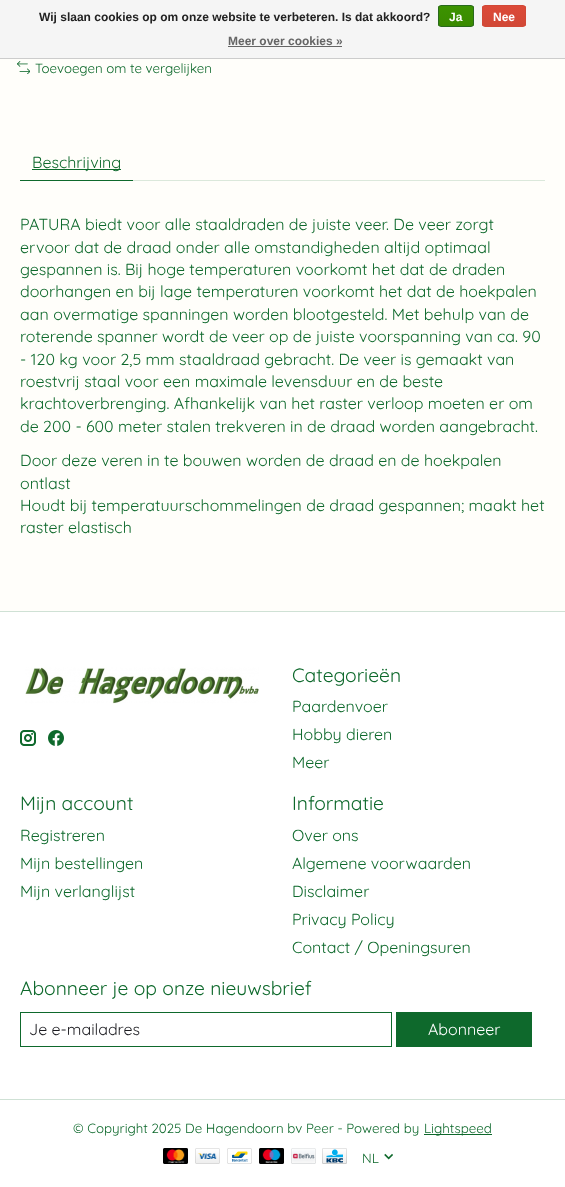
<svg xmlns="http://www.w3.org/2000/svg" width="565" height="1187" viewBox="0 0 565 1187">
  <style>
    .t1 { font: bold 12px Liberation Sans; fill: #222; }
    .t2 { font: bold 12px Liberation Sans; fill: #fff; }
    .t3 { font: bold 12px Liberation Sans; fill: #666; }
    .t4 { font: 13.3px Quicksand; fill: #0e692c; }
    .t5 { font: 16px Quicksand; fill: #0e692c; }
    .t6 { font: 19.25px Quicksand; fill: #0e692c; }
    .t7 { font: 16px Quicksand; fill: #1c1c21; }
    .t8 { font: 16px Quicksand; fill: #fff; }
  </style>
  <defs>
    <clipPath id="clip1"><rect x="438" y="5" width="36" height="22" rx="3"/></clipPath>
    <linearGradient id="g1" gradientUnits="userSpaceOnUse" x1="456" y1="6" x2="456" y2="26"><stop offset="0" stop-color="#3c9300"/><stop offset="1" stop-color="#398a00"/></linearGradient>
    <clipPath id="clip2"><rect x="482" y="5" width="44" height="22" rx="3"/></clipPath>
    <linearGradient id="g2" gradientUnits="userSpaceOnUse" x1="504" y1="6" x2="504" y2="26"><stop offset="0" stop-color="#dc4a38"/><stop offset="1" stop-color="#d14836"/></linearGradient>
  </defs>
  <rect width="100%" height="100%" fill="#fffefa"/>
  <rect x="0" y="0" width="565" height="58" fill="#f5f5f5"/>
  <rect x="0" y="58" width="565" height="1" fill="#ccc"/>
  <text x="39" y="21" class="t1">Wij slaan cookies op om onze website te verbeteren. Is dat akkoord?</text>
  <g clip-path="url(#clip1)">
    <rect x="438" y="6" width="36" height="20" fill="url(#g1)"/>
  </g>
  <rect x="438.5" y="5.5" width="35" height="21" rx="2.5" fill="none" stroke="#29691d"/>
  <text x="449" y="21" class="t2">Ja</text>
  <g clip-path="url(#clip2)">
    <rect x="482" y="6" width="44" height="20" fill="url(#g2)"/>
  </g>
  <rect x="482.5" y="5.5" width="43" height="21" rx="2.5" fill="none" stroke="#d14836"/>
  <text x="493" y="21" class="t2">Nee</text>
  <text x="228" y="45" class="t3">Meer over cookies »</text>
  <rect x="228" y="46" width="114" height="1" fill="#666"/>
  <image x="17" y="61" width="13" height="13" href="images/1.png"/>
  <text x="35" y="73" class="t4">Toevoegen om te vergelijken</text>
  <rect x="20" y="180" width="113" height="1" fill="#0e692c"/>
  <rect x="32" y="169" width="89" height="1" fill="#0e692c"/>
  <text x="32" y="168" class="t5">Beschrijving</text>
  <rect x="133" y="180" width="412" height="1" fill="#dbe8db"/>
  <text x="20" y="230" class="t5">PATURA biedt voor alle staaldraden de juiste veer. De veer zorgt</text>
  <text x="20" y="253" class="t5">ervoor dat de draad onder alle omstandigheden altijd optimaal</text>
  <text x="20" y="275" class="t5">gespannen is. Bij hoge temperaturen voorkomt het dat de draden</text>
  <text x="20" y="297" class="t5">doorhangen en bij lage temperaturen voorkomt het dat de hoekpalen</text>
  <text x="20" y="320" class="t5">aan overmatige spanningen worden blootgesteld. Met behulp van de</text>
  <text x="20" y="342" class="t5">roterende spanner wordt de veer op de juiste voorspanning van ca. 90</text>
  <text x="20" y="365" class="t5">- 120 kg voor 2,5 mm staaldraad gebracht. De veer is gemaakt van</text>
  <text x="20" y="387" class="t5">roestvrij staal voor een maximale levensduur en de beste</text>
  <text x="20" y="409" class="t5">krachtoverbrenging. Afhankelijk van het raster verloop moeten er om</text>
  <text x="20" y="432" class="t5">de 200 - 600 meter stalen trekveren in de draad worden aangebracht.</text>
  <text x="20" y="466" class="t5">Door deze veren in te bouwen worden de draad en de hoekpalen</text>
  <text x="20" y="489" class="t5">ontlast</text>
  <text x="20" y="511" class="t5">Houdt bij temperatuurschommelingen de draad gespannen; maakt het</text>
  <text x="20" y="533" class="t5">raster elastisch</text>
  <rect x="0" y="612" width="565" height="575" fill="#fff"/>
  <rect x="0" y="611" width="565" height="1" fill="#cfe1d5"/>
  <image x="25" y="667" width="234" height="37" href="images/2.png"/>
  <image x="20" y="730" width="16" height="16" href="images/3.png"/>
  <image x="48" y="730" width="16" height="16" href="images/4.png"/>
  <text x="292" y="682" class="t6">Categorieën</text>
  <text x="292" y="712" class="t5">Paardenvoer</text>
  <text x="292" y="740" class="t5">Hobby dieren</text>
  <text x="292" y="768" class="t5">Meer</text>
  <text x="20" y="810" class="t6">Mijn account</text>
  <text x="20" y="841" class="t5">Registreren</text>
  <text x="20" y="869" class="t5">Mijn bestellingen</text>
  <text x="20" y="897" class="t5">Mijn verlanglijst</text>
  <text x="292" y="810" class="t6">Informatie</text>
  <text x="292" y="841" class="t5">Over ons</text>
  <text x="292" y="869" class="t5">Algemene voorwaarden</text>
  <text x="292" y="897" class="t5">Disclaimer</text>
  <text x="292" y="925" class="t5">Privacy Policy</text>
  <text x="292" y="953" class="t5">Contact / Openingsuren</text>
  <text x="20" y="995" class="t6">Abonneer je op onze nieuwsbrief</text>
  <rect x="20.5" y="1012.5" width="371" height="34" fill="none" stroke="#0e692c"/>
  <text x="29" y="1035" class="t7">Je e-mailadres</text>
  <rect x="396" y="1012" width="136" height="35" fill="#0e692c"/>
  <text x="428" y="1035" class="t8">Abonneer</text>
  <rect x="0" y="1099" width="565" height="1" fill="#cfe1d5"/>
  <text x="73" y="1133" class="t4">© Copyright 2025 De Hagendoorn bv Peer - Powered by</text>
  <rect x="424" y="1134" width="68" height="1" fill="#0e692c"/>
  <text x="424" y="1133" class="t4">Lightspeed</text>
  <image x="163" y="1148" width="25" height="16" href="images/5.png"/>
  <image x="195" y="1148" width="25" height="16" href="images/6.png"/>
  <image x="227" y="1148" width="25" height="16" href="images/7.png"/>
  <image x="259" y="1148" width="25" height="16" href="images/8.png"/>
  <image x="291" y="1148" width="25" height="16" href="images/9.png"/>
  <image x="322" y="1148" width="25" height="16" href="images/10.png"/>
  <text x="362" y="1163" class="t4">NL</text>
  <image x="384" y="1153" width="9" height="7" href="images/11.png"/>
</svg>
